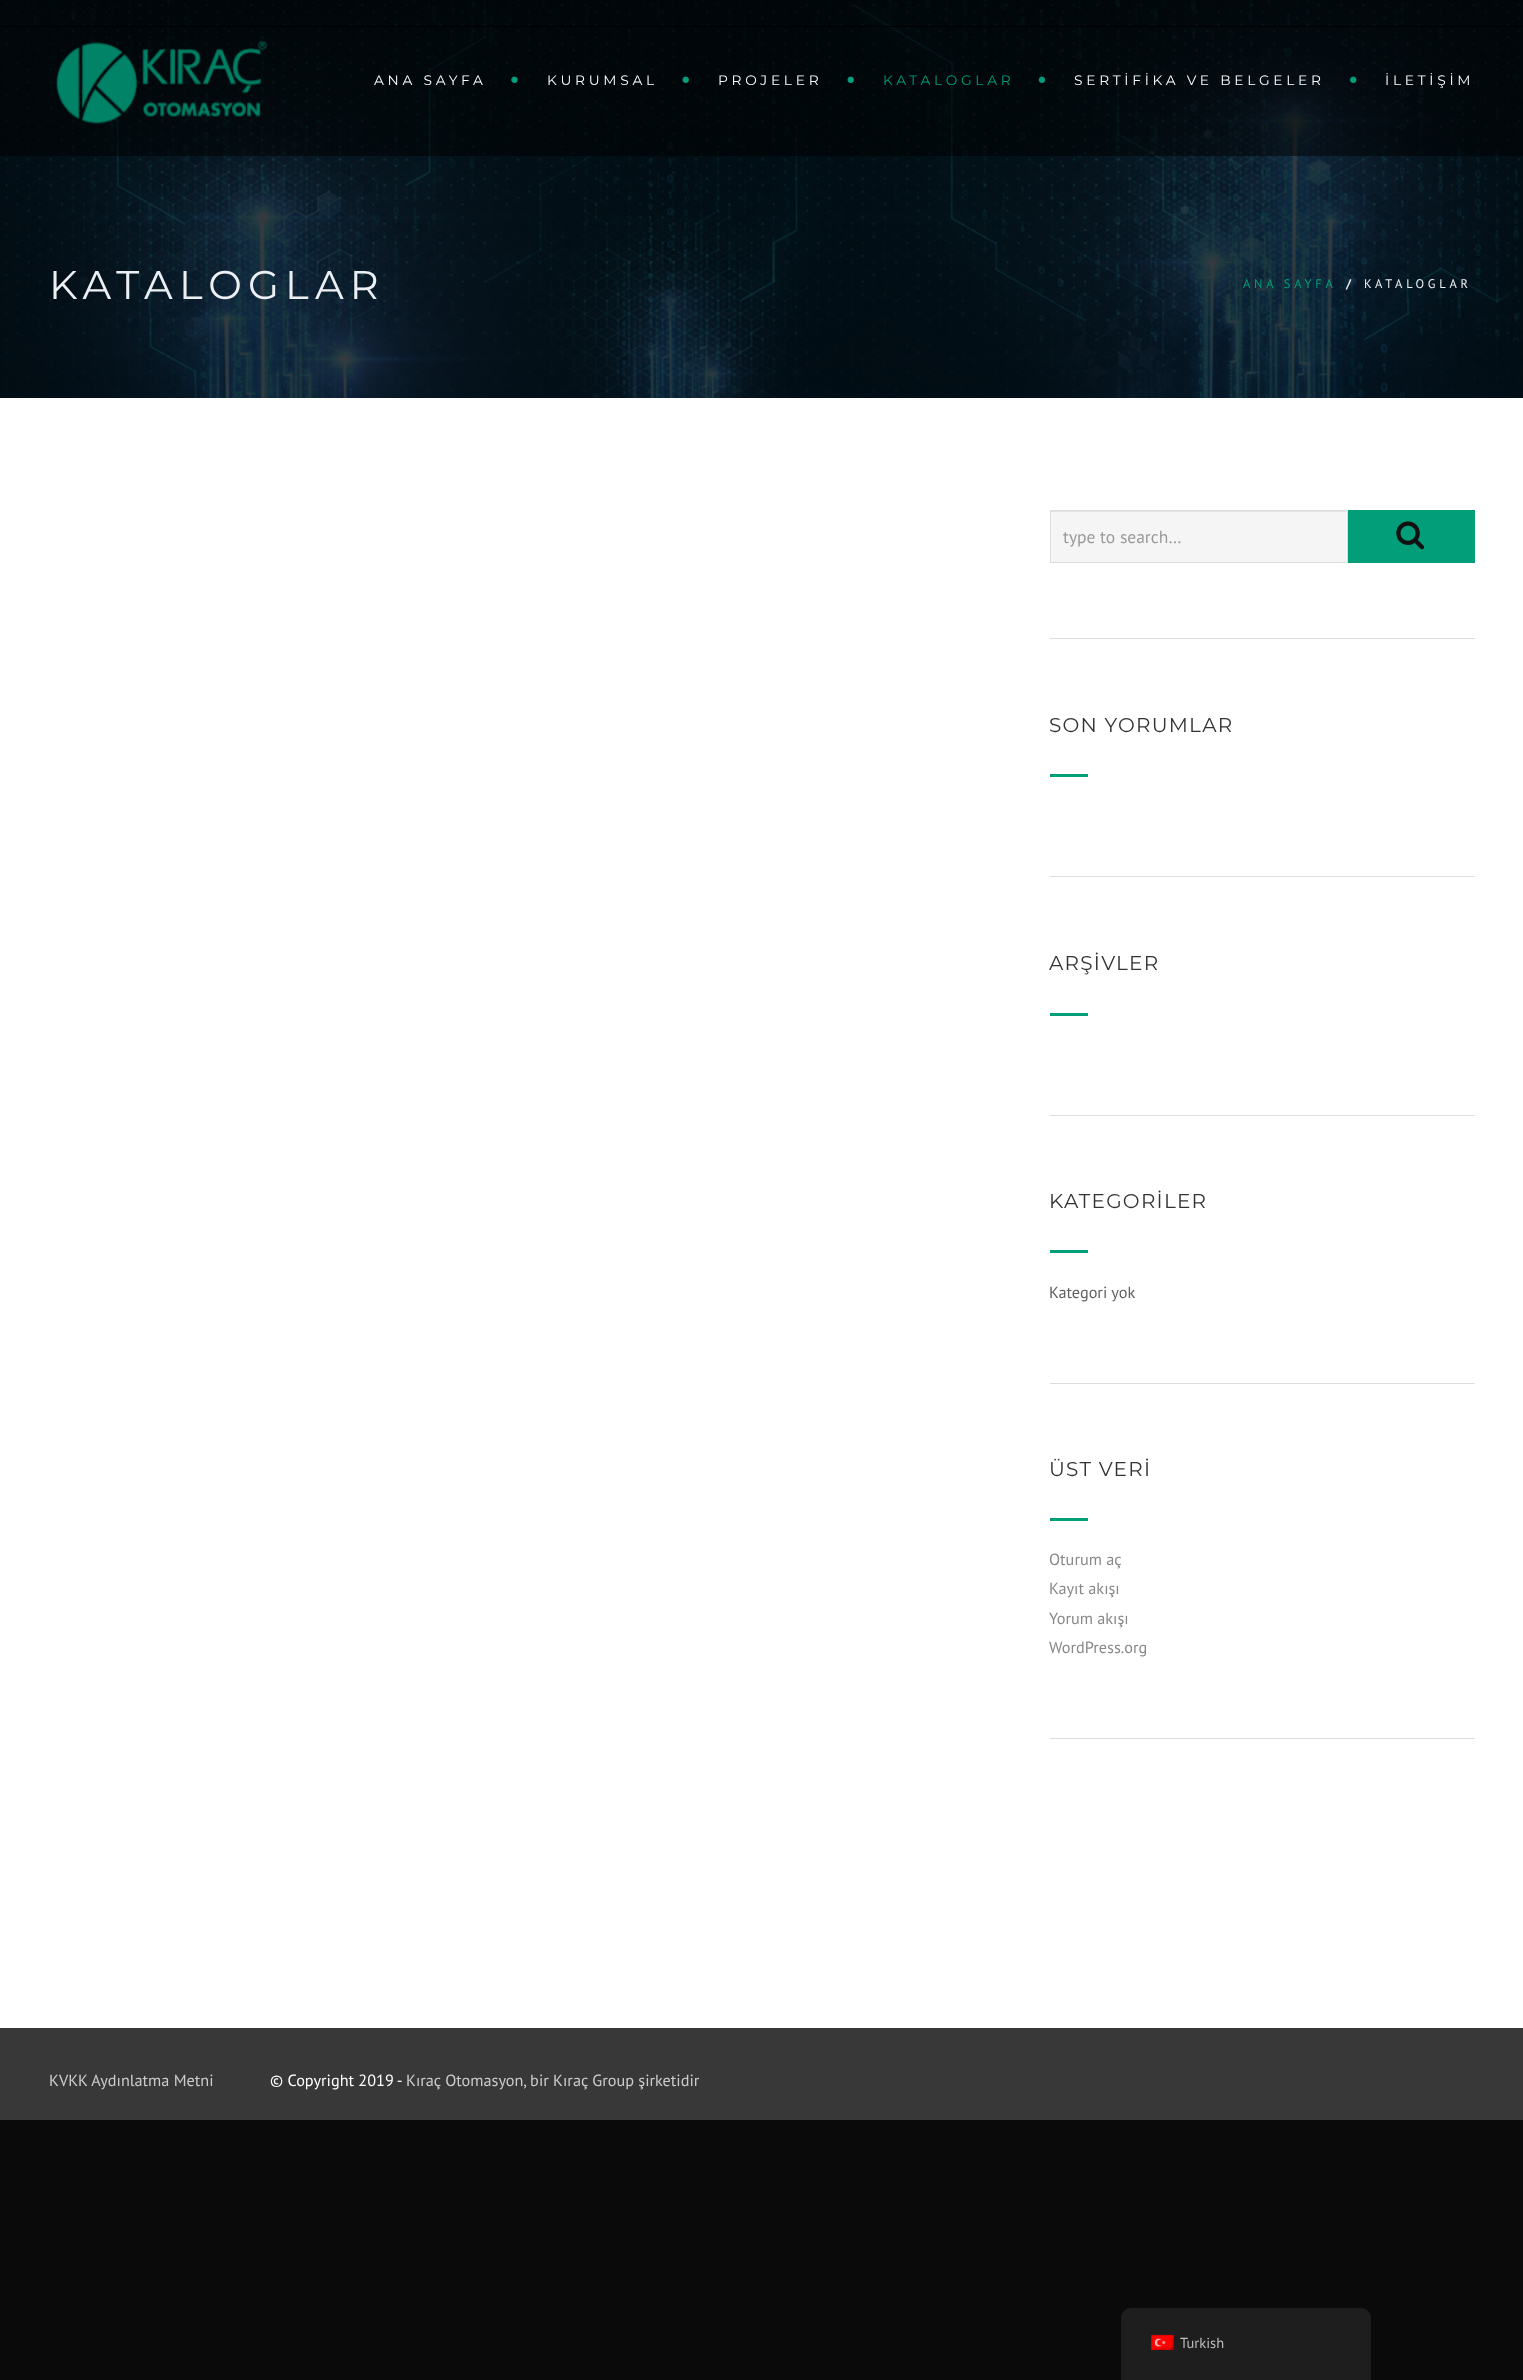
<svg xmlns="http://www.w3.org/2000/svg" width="1523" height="2380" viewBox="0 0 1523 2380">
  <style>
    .t1 { font: 13.75px Montserrat; letter-spacing: 3.75px; fill: #fff; }
    .t2 { font: 13.75px Montserrat; letter-spacing: 3.75px; fill: #019e79; }
    .t3 { font: 40px Montserrat; letter-spacing: 6.25px; fill: #eceff3; }
    .t4 { font: 12.5px PT Sans; letter-spacing: 3.75px; fill: #019e79; }
    .t5 { font: bold 12.5px PT Sans; letter-spacing: 3.75px; fill: #eceff3; }
    .t6 { font: 12.5px PT Sans; letter-spacing: 3.75px; fill: #eceff3; }
    .t7 { font: 17.5px PT Sans; fill: #999; }
    .t8 { font: 20px Montserrat; letter-spacing: 1.25px; fill: #333; }
    .t9 { font: 16.25px PT Sans; fill: #606060; }
    .t10 { font: 16.25px PT Sans; fill: #888; }
    .t11 { font: 16.25px PT Sans; fill: #ccc; }
    .t12 { font: 16.25px PT Sans; fill: #fff; }
    .t13 { font: 14.5px PT Sans; fill: #bdbdbd; }
  </style>
  <rect width="100%" height="100%" fill="#0a0a0a"/>
  <rect x="0" y="398" width="1523" height="1630" fill="#fff"/>
  <image x="0" y="0" width="1523" height="398" href="images/7.png"/>
  <rect x="0" y="0" width="1523" height="156" fill="#00000080"/>
  <rect x="0" y="26" width="1523" height="1" fill="#000000f7"/>
  <image x="56" y="41" width="212" height="83" href="images/1.png"/>
  <text x="374" y="85" class="t1">ANA SAYFA</text>
  <image x="511" y="76" width="7" height="7" href="images/2.png"/>
  <text x="547" y="85" class="t1">KURUMSAL</text>
  <image x="682" y="76" width="7" height="7" href="images/3.png"/>
  <text x="718" y="85" class="t1">PROJELER</text>
  <image x="847" y="76" width="7" height="7" href="images/4.png"/>
  <text x="883" y="85" class="t2">KATALOGLAR</text>
  <image x="1038" y="76" width="8" height="7" href="images/5.png"/>
  <text x="1074" y="85" class="t1">SERTİFİKA VE BELGELER</text>
  <image x="1350" y="76" width="7" height="7" href="images/6.png"/>
  <text x="1385" y="85" class="t1">İLETİŞİM</text>
  <text x="49" y="299" class="t3">KATALOGLAR</text>
  <text x="1243" y="288" class="t4">ANA SAYFA</text>
  <text x="1346" y="288" class="t5">/</text>
  <text x="1364" y="288" class="t6">KATALOGLAR</text>
  <rect x="1050" y="638" width="425" height="1" fill="#ddd"/>
  <rect x="1051" y="511" width="296" height="51" fill="#f5f5f5"/>
  <rect x="1051" y="511" width="295" height="1" fill="#e3e3e3"/>
  <rect x="1050.5" y="510.5" width="297" height="52" fill="none" stroke="#ddd"/>
  <text x="1063" y="543" class="t7">type to search…</text>
  <rect x="1348" y="510" width="127" height="53" fill="#019e79"/>
  <image x="1396" y="521" width="29" height="29" href="images/8.png"/>
  <rect x="1050" y="876" width="425" height="1" fill="#ddd"/>
  <text x="1049" y="732" class="t8">SON YORUMLAR</text>
  <rect x="1050" y="774" width="38" height="3" fill="#019e79"/>
  <rect x="1050" y="1115" width="425" height="1" fill="#ddd"/>
  <text x="1049" y="970" class="t8">ARŞİVLER</text>
  <rect x="1050" y="1013" width="38" height="3" fill="#019e79"/>
  <rect x="1050" y="1383" width="425" height="1" fill="#ddd"/>
  <text x="1049" y="1208" class="t8">KATEGORİLER</text>
  <rect x="1050" y="1250" width="38" height="3" fill="#019e79"/>
  <text x="1049" y="1298" class="t9">Kategori yok</text>
  <rect x="1050" y="1738" width="425" height="1" fill="#ddd"/>
  <text x="1049" y="1476" class="t8">ÜST VERİ</text>
  <rect x="1050" y="1518" width="38" height="3" fill="#019e79"/>
  <text x="1049" y="1565" class="t10">Oturum aç</text>
  <text x="1049" y="1594" class="t10">Kayıt akışı</text>
  <text x="1049" y="1624" class="t10">Yorum akışı</text>
  <text x="1049" y="1653" class="t10">WordPress.org</text>
  <rect x="0" y="2028" width="1523" height="92" fill="#383838"/>
  <text x="49" y="2086" class="t11">KVKK Aydınlatma Metni</text>
  <text x="270" y="2086" class="t12">© Copyright 2019 -</text>
  <text x="406" y="2086" class="t11">Kıraç Otomasyon, bir Kıraç Group şirketidir</text>
  <path d="M1131 2308H1361C1366.5 2308 1371 2312.5 1371 2318V2380H1121V2318C1121 2312.5 1125.5 2308 1131 2308Z" fill="#1e1e1e"/>
  <image x="1151" y="2334" width="23" height="16" href="images/9.png"/>
  <text x="1180" y="2348" class="t13">Turkish</text>
</svg>
